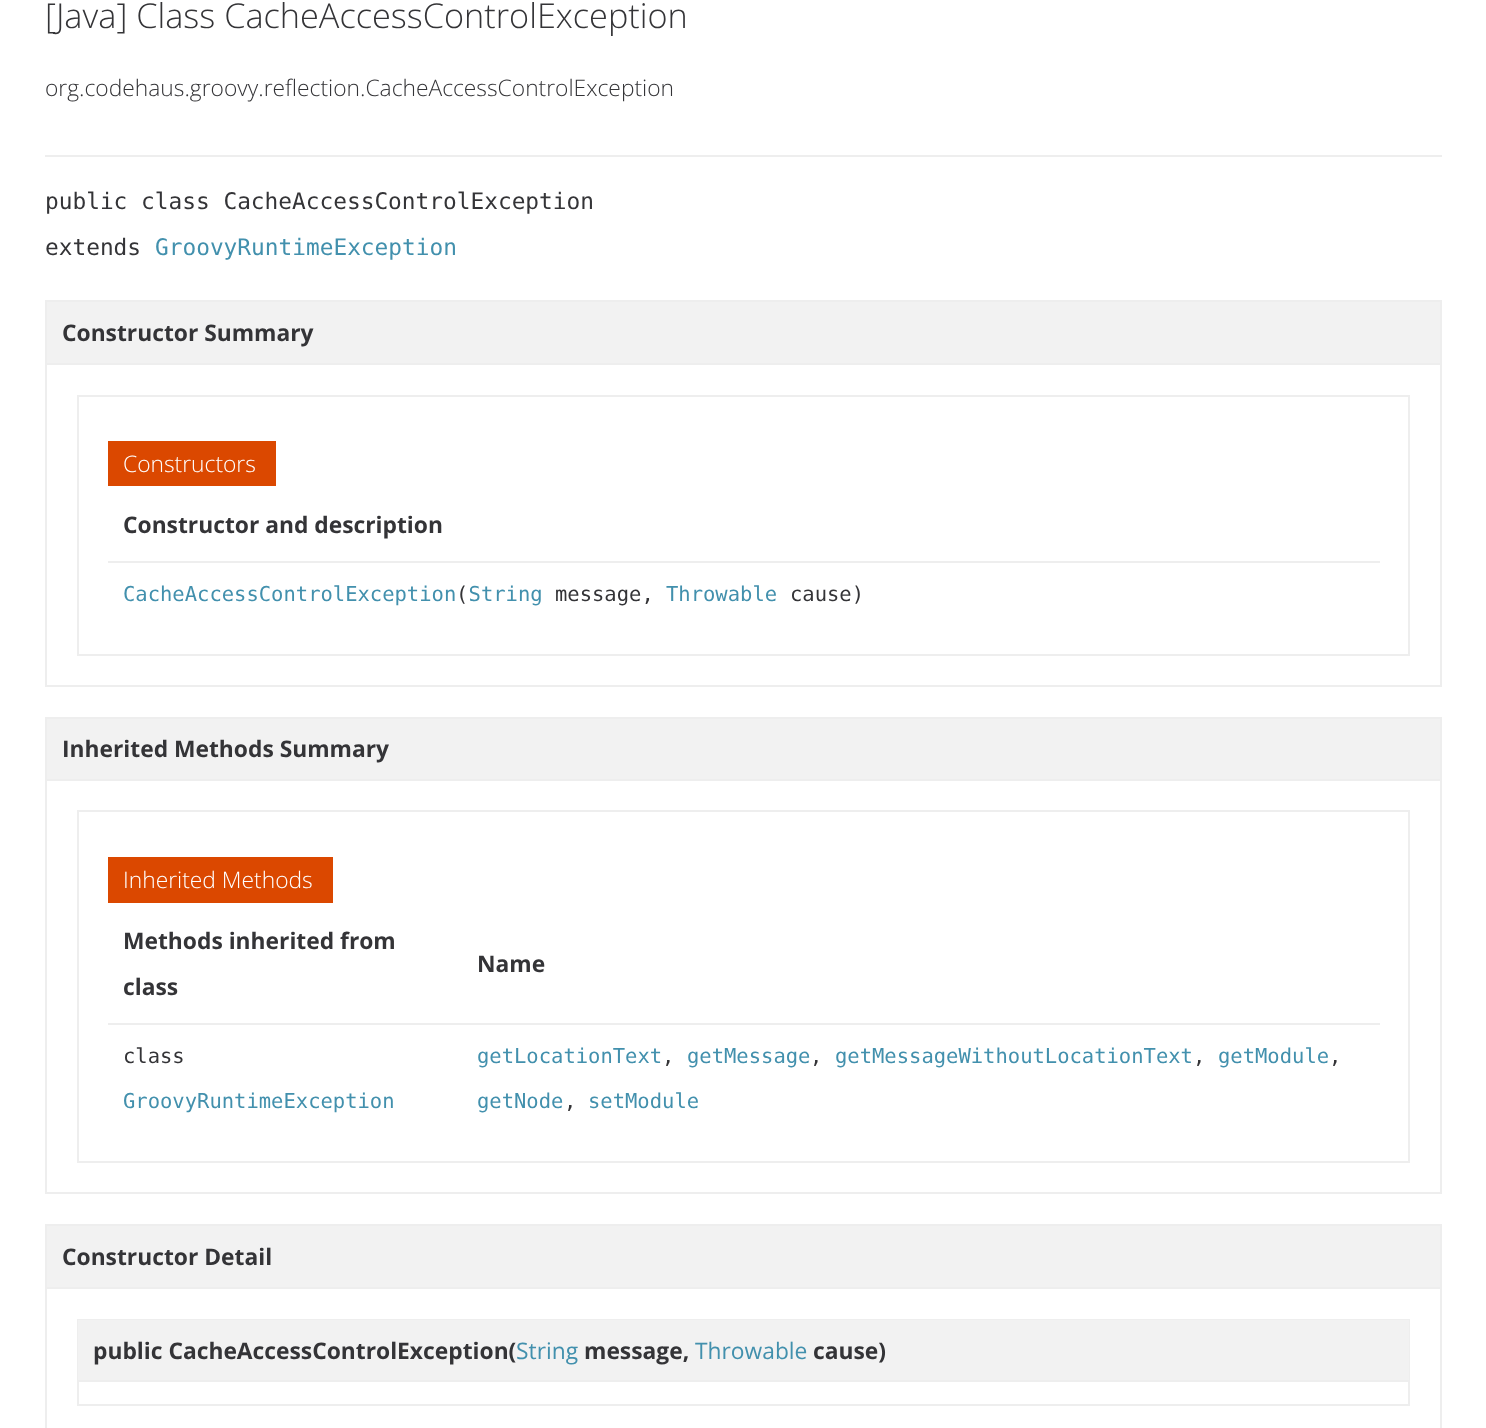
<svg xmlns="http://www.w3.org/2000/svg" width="1486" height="1428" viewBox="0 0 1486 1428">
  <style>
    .t1 { font: 300 34.25px Open Sans; fill: #343437; }
    .t2 { font: 300 22.8px Open Sans; fill: #343437; }
    .t3 { font: 22.8px DejaVu Sans Mono; fill: #343437; }
    .t4 { font: 22.8px DejaVu Sans Mono; fill: #4290ad; }
    .t5 { font: bold 22.8px Open Sans; fill: #343437; }
    .t6 { font: 300 22.8px Open Sans; fill: #fff; }
    .t7 { font: 20.5px DejaVu Sans Mono; fill: #4290ad; }
    .t8 { font: 20.5px DejaVu Sans Mono; fill: #343437; }
    .t9 { font: 22.8px Open Sans; fill: #4290ad; }
  </style>
  <rect width="100%" height="100%" fill="#fff"/>
  <text x="45" y="28" class="t1">[Java] Class CacheAccessControlException</text>
  <text x="45" y="96" class="t2">org.codehaus.groovy.reflection.CacheAccessControlException</text>
  <rect x="45" y="155" width="1397" height="2" fill="#eee"/>
  <text x="45" y="209" class="t3">public class CacheAccessControlException</text>
  <text x="45" y="255" class="t3">extends</text>
  <text x="155" y="255" class="t4">GroovyRuntimeException</text>
  <rect x="46" y="301" width="1395" height="385" fill="none" stroke="#eee" stroke-width="2"/>
  <rect x="47" y="302" width="1393" height="61" fill="#f2f2f2"/>
  <rect x="47" y="363" width="1393" height="2" fill="#eee"/>
  <text x="62" y="341" class="t5">Constructor Summary</text>
  <rect x="78" y="396" width="1331" height="259" fill="none" stroke="#eee" stroke-width="2"/>
  <rect x="108" y="441" width="168" height="45" fill="#db4800"/>
  <text x="123" y="472" class="t6">Constructors</text>
  <text x="123" y="533" class="t5">Constructor and description</text>
  <rect x="108" y="561" width="1272" height="2" fill="#eee"/>
  <text x="123" y="601" class="t7">CacheAccessControlException String</text>
  <text x="456" y="601" class="t8">(</text>
  <text x="555" y="601" class="t8">message,</text>
  <text x="666" y="601" class="t7">Throwable</text>
  <text x="790" y="601" class="t8">cause)</text>
  <rect x="46" y="718" width="1395" height="475" fill="none" stroke="#eee" stroke-width="2"/>
  <rect x="47" y="719" width="1393" height="60" fill="#f2f2f2"/>
  <rect x="47" y="779" width="1393" height="2" fill="#eee"/>
  <text x="62" y="757" class="t5">Inherited Methods Summary</text>
  <rect x="78" y="811" width="1331" height="351" fill="none" stroke="#eee" stroke-width="2"/>
  <rect x="108" y="857" width="225" height="46" fill="#db4800"/>
  <text x="123" y="888" class="t6">Inherited Methods</text>
  <text x="123" y="949" class="t5">Methods inherited from</text>
  <text x="123" y="995" class="t5">class</text>
  <text x="477" y="972" class="t5">Name</text>
  <text x="123" y="1063" class="t8">class</text>
  <text x="123" y="1108" class="t7">GroovyRuntimeException</text>
  <rect x="108" y="1023" width="1272" height="2" fill="#eee"/>
  <text x="477" y="1063" class="t7">getLocationText</text>
  <text x="662" y="1063" class="t8">,</text>
  <text x="687" y="1063" class="t7">getMessage</text>
  <text x="810" y="1063" class="t8">,</text>
  <text x="835" y="1063" class="t7">getMessageWithoutLocationText</text>
  <text x="1193" y="1063" class="t8">,</text>
  <text x="1218" y="1063" class="t7">getModule</text>
  <text x="1329" y="1063" class="t8">,</text>
  <text x="477" y="1108" class="t7">getNode</text>
  <text x="564" y="1108" class="t8">,</text>
  <text x="588" y="1108" class="t7">setModule</text>
  <rect x="46" y="1225" width="1395" height="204" fill="none" stroke="#eee" stroke-width="2"/>
  <rect x="47" y="1226" width="1393" height="61" fill="#f2f2f2"/>
  <rect x="47" y="1287" width="1393" height="2" fill="#eee"/>
  <text x="62" y="1265" class="t5">Constructor Detail</text>
  <rect x="78" y="1320" width="1331" height="85" fill="none" stroke="#eee" stroke-width="2"/>
  <rect x="78" y="1320" width="1331" height="60" fill="#f2f2f2"/>
  <rect x="78" y="1380" width="1331" height="2" fill="#eee"/>
  <text x="93" y="1359" class="t5">public CacheAccessControlException(</text>
  <text x="516" y="1359" class="t9">String</text>
  <text x="584" y="1359" class="t5">message,</text>
  <text x="695" y="1359" class="t9">Throwable</text>
  <text x="813" y="1359" class="t5">cause)</text>
</svg>
